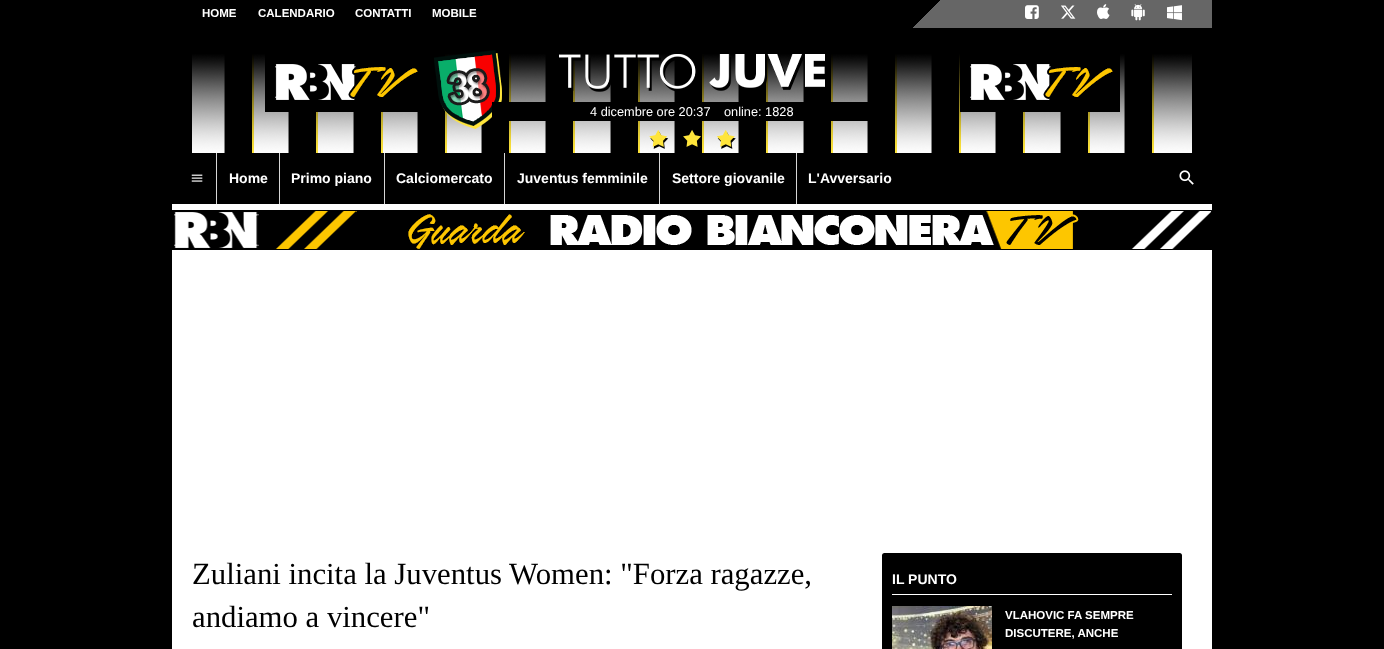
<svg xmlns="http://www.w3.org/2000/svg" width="1384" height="649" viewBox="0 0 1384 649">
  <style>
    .t1 { font: bold 11.5px Liberation Sans; fill: #fff; }
    .t2 { font: 12.75px Liberation Sans; fill: #fff; }
    .t3 { font: bold 14px Liberation Sans; fill: #fff; }
    .t4 { font: 30.75px Liberation Serif; fill: #000; }
  </style>
  <defs>
    <linearGradient id="g1" gradientUnits="userSpaceOnUse" x1="425" y1="-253" x2="959" y2="281"><stop offset="0.72" stop-color="#000"/><stop offset="0.72" stop-color="#666"/><stop offset="1" stop-color="#666"/></linearGradient>
  </defs>
  <rect width="100%" height="100%" fill="#000"/>
  <rect x="172" y="204" width="1040" height="445" fill="#fff"/>
  <rect x="913" y="0" width="299" height="28" fill="url(#g1)"/>
  <text x="202" y="17" class="t1">HOME</text>
  <text x="258" y="17" class="t1">CALENDARIO</text>
  <text x="355" y="17" class="t1">CONTATTI</text>
  <text x="432" y="17" class="t1">MOBILE</text>
  <image x="1025" y="5" width="14" height="14" href="images/1.png"/>
  <image x="1061" y="5" width="15" height="14" href="images/2.png"/>
  <image x="1097" y="4" width="13" height="15" href="images/3.png"/>
  <image x="1131" y="4" width="14" height="17" href="images/4.png"/>
  <image x="1167" y="5" width="15" height="16" href="images/5.png"/>
  <image x="192" y="50" width="1000" height="103" href="images/6.png"/>
  <image x="265" y="52" width="160" height="60" href="images/7.png"/>
  <image x="559" y="54" width="266" height="38" href="images/8.png"/>
  <rect x="492" y="102" width="376" height="19" fill="#000"/>
  <text x="590" y="116" class="t2">4 dicembre ore 20:37</text>
  <text x="724" y="116" class="t2">online: 1828</text>
  <image x="960" y="52" width="160" height="60" href="images/7.png"/>
  <image x="191" y="174" width="12" height="8" href="images/9.png"/>
  <rect x="216" y="153" width="1" height="51" fill="#d6d6d6"/>
  <text x="229" y="183" class="t3">Home</text>
  <rect x="279" y="153" width="1" height="51" fill="#d6d6d6"/>
  <text x="291" y="183" class="t3">Primo piano</text>
  <rect x="384" y="153" width="1" height="51" fill="#d6d6d6"/>
  <text x="396" y="183" class="t3">Calciomercato</text>
  <rect x="504" y="153" width="1" height="51" fill="#d6d6d6"/>
  <text x="517" y="183" class="t3">Juventus femminile</text>
  <rect x="659" y="153" width="1" height="51" fill="#d6d6d6"/>
  <text x="672" y="183" class="t3">Settore giovanile</text>
  <rect x="796" y="153" width="1" height="51" fill="#d6d6d6"/>
  <text x="808" y="183" class="t3">L'Avversario</text>
  <image x="1179" y="170" width="15" height="15" href="images/10.png"/>
  <image x="172" y="210" width="1040" height="40" href="images/11.png"/>
  <text x="192" y="584" class="t4">Zuliani incita la Juventus Women: "Forza ragazze,</text>
  <text x="192" y="627" class="t4">andiamo a vincere"</text>
  <rect x="882" y="553" width="300" height="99" rx="2.5" fill="#000"/>
  <rect x="892" y="594" width="280" height="1" fill="#fff"/>
  <text x="892" y="584" class="t3">IL PUNTO</text>
  <image x="892" y="606" width="100" height="43" href="images/12.png"/>
  <text x="1005" y="619" class="t1">VLAHOVIC FA SEMPRE</text>
  <text x="1005" y="637" class="t1">DISCUTERE, ANCHE</text>
</svg>
